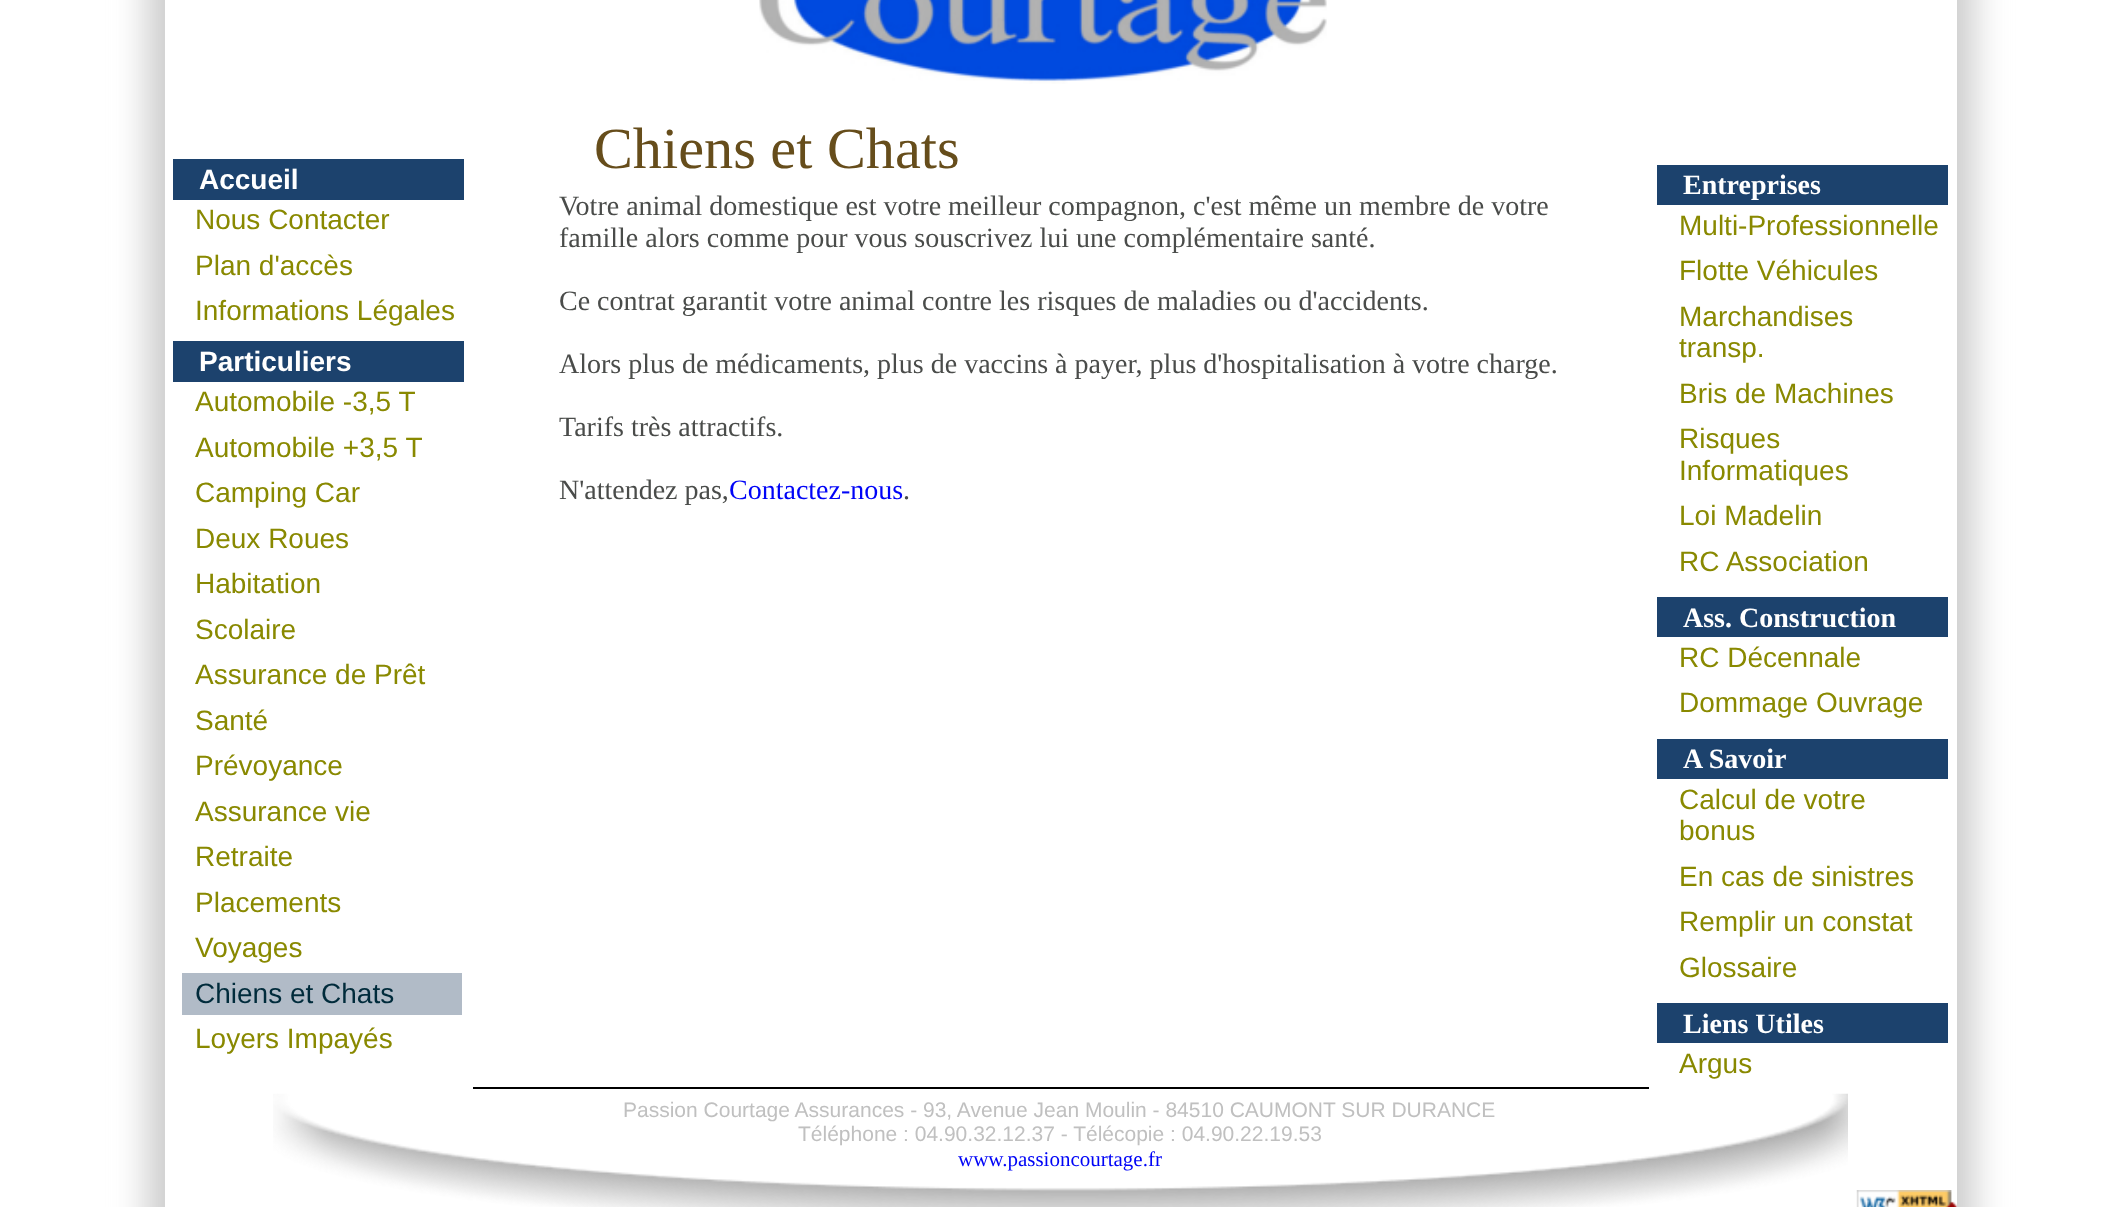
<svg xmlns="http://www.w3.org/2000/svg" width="2118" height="1207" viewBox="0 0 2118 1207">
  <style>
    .t1 { font: bold 28px Liberation Sans; fill: #fff; }
    .t2 { font: 28px Liberation Sans; fill: #898900; }
    .t3 { font: 28px Liberation Sans; fill: #002b3b; }
    .t4 { font: 58.25px Liberation Serif; fill: #664d1b; }
    .t5 { font: 28px Liberation Serif; fill: #4a4c4a; }
    .t6 { font: 28px Liberation Serif; fill: #0004f7; }
    .t7 { font: bold 28px Liberation Serif; fill: #fff; }
    .t8 { font: 21px Liberation Sans; fill: #c0c0c0; }
    .t9 { font: 21px Liberation Serif; fill: #0004f7; }
  </style>
  <rect width="100%" height="100%" fill="#fff"/>
  <rect x="147" y="-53" width="1827" height="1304" fill="#ccc" filter="blur(17.5px)"/>
  <rect x="165" y="0" width="1792" height="1207" fill="#fff"/>
  <image x="273" y="1093" width="1575" height="114" href="images/1.png"/>
  <image x="759" y="0" width="568" height="84" href="images/2.png"/>
  <rect x="173" y="159" width="291" height="41" fill="#1c426d"/>
  <text x="199" y="189" class="t1">Accueil</text>
  <text x="195" y="229" class="t2">Nous Contacter</text>
  <text x="195" y="275" class="t2">Plan d'accès</text>
  <text x="195" y="320" class="t2">Informations Légales</text>
  <rect x="173" y="341" width="291" height="41" fill="#1c426d"/>
  <text x="199" y="371" class="t1">Particuliers</text>
  <text x="195" y="411" class="t2">Automobile -3,5 T</text>
  <text x="195" y="457" class="t2">Automobile +3,5 T</text>
  <text x="195" y="502" class="t2">Camping Car</text>
  <text x="195" y="548" class="t2">Deux Roues</text>
  <text x="195" y="593" class="t2">Habitation</text>
  <text x="195" y="639" class="t2">Scolaire</text>
  <text x="195" y="684" class="t2">Assurance de Prêt</text>
  <text x="195" y="730" class="t2">Santé</text>
  <text x="195" y="775" class="t2">Prévoyance</text>
  <text x="195" y="821" class="t2">Assurance vie</text>
  <text x="195" y="866" class="t2">Retraite</text>
  <text x="195" y="912" class="t2">Placements</text>
  <text x="195" y="957" class="t2">Voyages</text>
  <rect x="182" y="973" width="280" height="42" fill="#b1bbc7"/>
  <text x="195" y="1003" class="t3">Chiens et Chats</text>
  <text x="195" y="1048" class="t2">Loyers Impayés</text>
  <rect x="473" y="1087" width="1176" height="2" fill="#000"/>
  <text x="594" y="168" class="t4">Chiens et Chats</text>
  <text x="559" y="215" class="t5">Votre animal domestique est votre meilleur compagnon, c'est même un membre de votre</text>
  <text x="559" y="247" class="t5">famille alors comme pour vous souscrivez lui une complémentaire santé.</text>
  <text x="559" y="310" class="t5">Ce contrat garantit votre animal contre les risques de maladies ou d'accidents.</text>
  <text x="559" y="373" class="t5">Alors plus de médicaments, plus de vaccins à payer, plus d'hospitalisation à votre charge.</text>
  <text x="559" y="436" class="t5">Tarifs très attractifs.</text>
  <text x="559" y="499" class="t5">N'attendez pas,</text>
  <text x="729" y="499" class="t6">Contactez-nous</text>
  <text x="903" y="499" class="t5">.</text>
  <rect x="1657" y="165" width="291" height="40" fill="#1c426d"/>
  <text x="1683" y="194" class="t7">Entreprises</text>
  <text x="1679" y="235" class="t2">Multi-Professionnelle</text>
  <text x="1679" y="280" class="t2">Flotte Véhicules</text>
  <text x="1679" y="326" class="t2">Marchandises</text>
  <text x="1679" y="357" class="t2">transp.</text>
  <text x="1679" y="403" class="t2">Bris de Machines</text>
  <text x="1679" y="448" class="t2">Risques</text>
  <text x="1679" y="480" class="t2">Informatiques</text>
  <text x="1679" y="525" class="t2">Loi Madelin</text>
  <text x="1679" y="571" class="t2">RC Association</text>
  <rect x="1657" y="597" width="291" height="40" fill="#1c426d"/>
  <text x="1683" y="627" class="t7">Ass. Construction</text>
  <text x="1679" y="667" class="t2">RC Décennale</text>
  <text x="1679" y="712" class="t2">Dommage Ouvrage</text>
  <rect x="1657" y="739" width="291" height="40" fill="#1c426d"/>
  <text x="1683" y="768" class="t7">A Savoir</text>
  <text x="1679" y="809" class="t2">Calcul de votre</text>
  <text x="1679" y="840" class="t2">bonus</text>
  <text x="1679" y="886" class="t2">En cas de sinistres</text>
  <text x="1679" y="931" class="t2">Remplir un constat</text>
  <text x="1679" y="977" class="t2">Glossaire</text>
  <rect x="1657" y="1003" width="291" height="40" fill="#1c426d"/>
  <text x="1683" y="1033" class="t7">Liens Utiles</text>
  <text x="1679" y="1073" class="t2">Argus</text>
  <text x="623" y="1117" class="t8">Passion Courtage Assurances - 93, Avenue Jean Moulin - 84510 CAUMONT SUR DURANCE</text>
  <text x="798" y="1141" class="t8">Téléphone : 04.90.32.12.37 - Télécopie : 04.90.22.19.53</text>
  <text x="958" y="1166" class="t9">www.passioncourtage.fr</text>
  <image x="1856" y="1190" width="101" height="17" href="images/3.png"/>
</svg>
